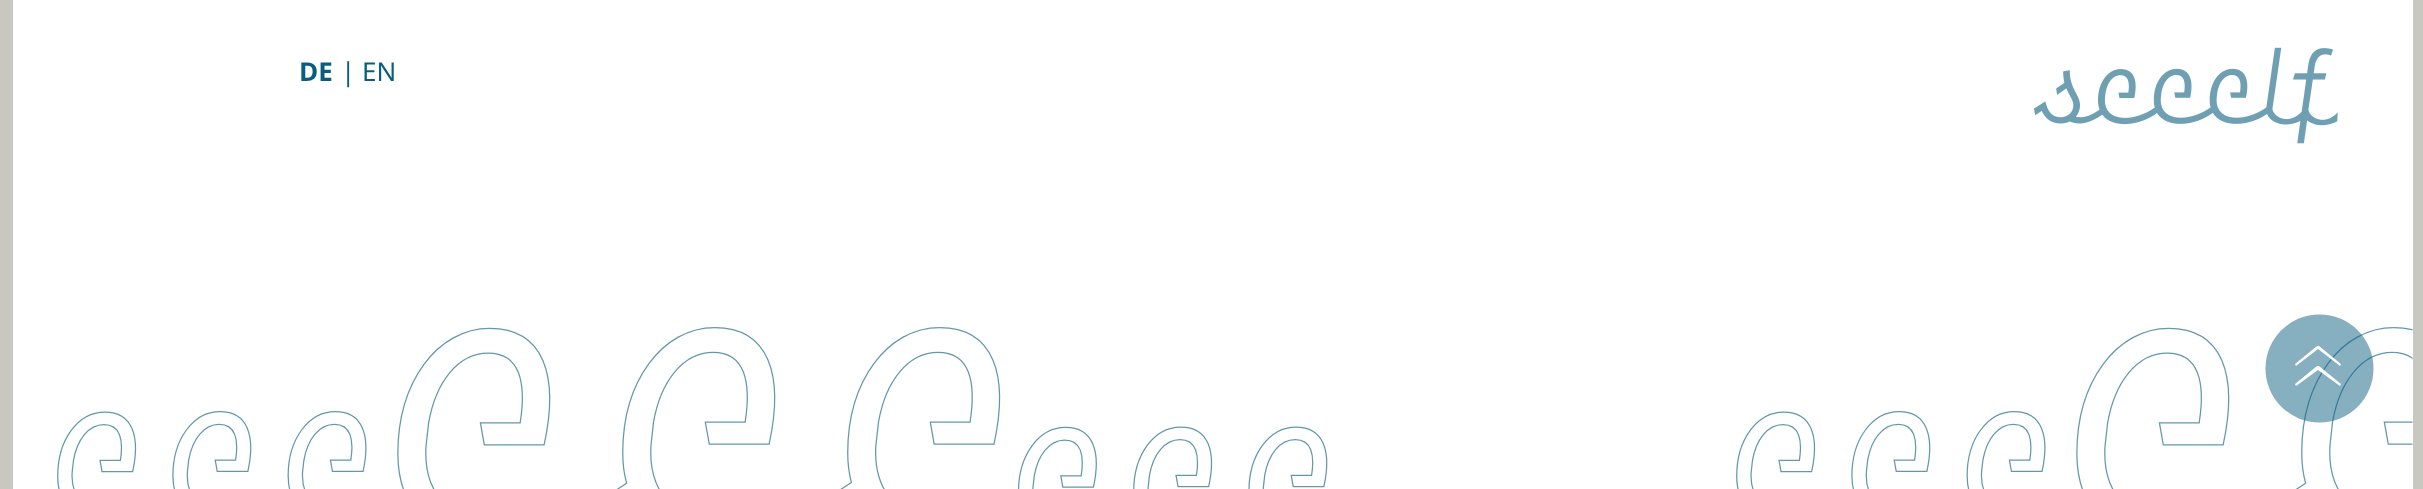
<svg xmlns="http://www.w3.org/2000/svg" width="2423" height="489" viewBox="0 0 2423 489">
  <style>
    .t1 { font: bold 26px Noto Sans; fill: #095e80; }
    .t2 { font: 26px Noto Sans; fill: #095e80; }
  </style>
  <rect width="100%" height="100%" fill="#c8c8c1"/>
  <rect x="13" y="0" width="2400" height="489" fill="#fff"/>
  <text x="299" y="81" class="t1">DE</text>
  <text x="341" y="81" class="t2">| EN</text>
  <image x="2034" y="47" width="304" height="97" href="images/1.png"/>
  <image x="57" y="327" width="2356" height="162" href="images/2.png"/>
  <circle cx="2319.5" cy="368.5" r="54" fill="#0e5f8180"/>
  <path d="M2319 346L2341 364L2340 366L2318 349L2296 366L2295 364L2317 346ZM2319 366L2341 384L2340 386L2318 370L2296 386L2295 384L2317 366Z" fill="#fff"/>
</svg>
